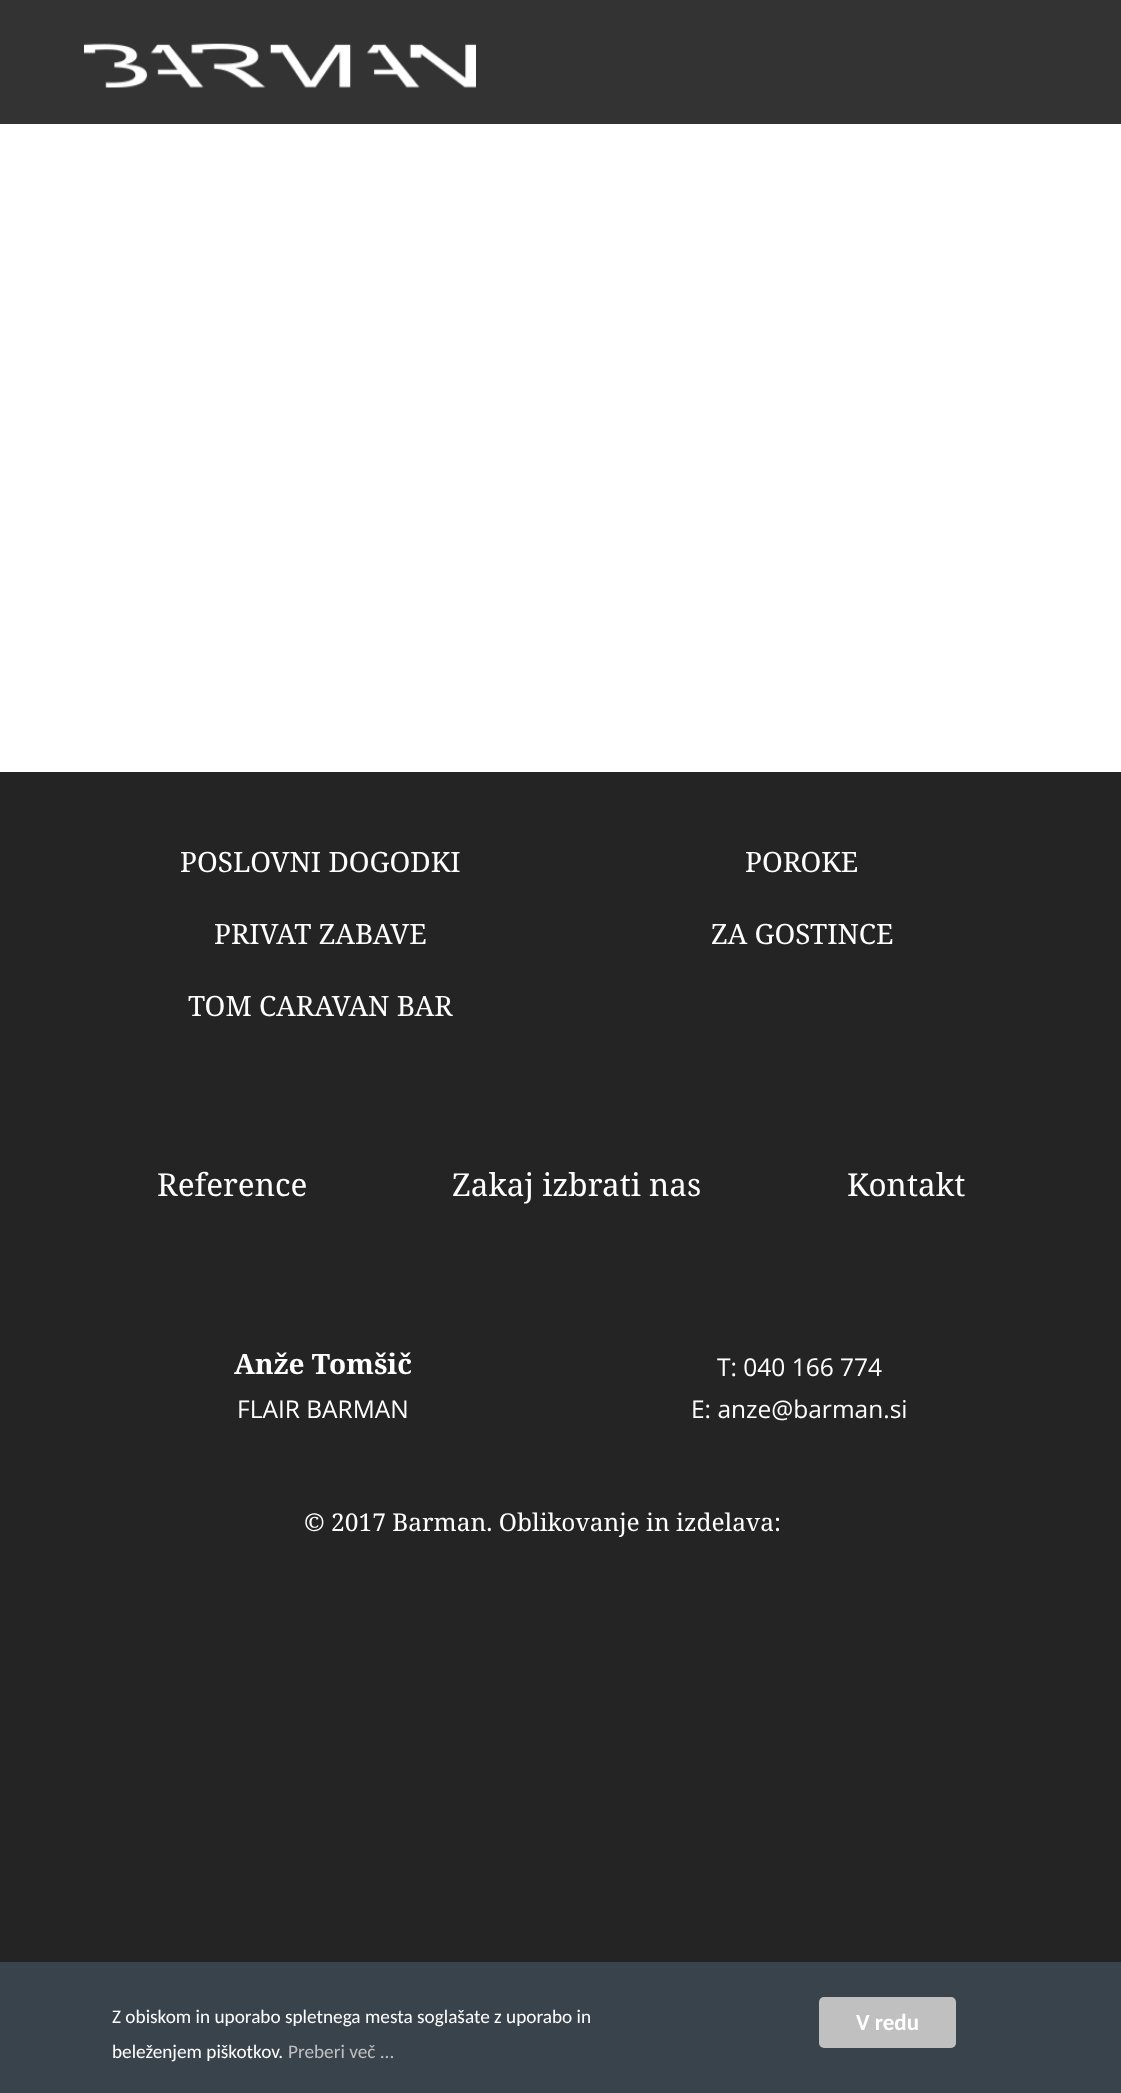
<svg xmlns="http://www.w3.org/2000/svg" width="1121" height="2093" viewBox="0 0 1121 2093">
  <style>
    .t1 { font: 28px Noto Serif; fill: #fff; }
    .t2 { font: 31.5px Noto Serif; fill: #fff; }
    .t3 { font: bold 28px Noto Serif; fill: #fff; }
    .t4 { font: 24.5px Open Sans; fill: #fff; }
    .t5 { font: 24.5px Noto Serif; fill: #fff; }
    .t6 { font: 19.25px Carlito; fill: #fff; }
    .t7 { font: 19.25px Carlito; fill: #c0c0c0; }
    .t8 { font: bold 23px Carlito; fill: #fff; }
  </style>
  <rect width="100%" height="100%" fill="#242424"/>
  <rect x="0" y="0" width="1121" height="124" fill="#333"/>
  <image x="84" y="43" width="392" height="45" href="images/1.png"/>
  <rect x="0" y="124" width="1121" height="648" fill="#fff"/>
  <text x="180" y="872" class="t1">POSLOVNI DOGODKI</text>
  <text x="745" y="872" class="t1">POROKE</text>
  <text x="214" y="944" class="t1">PRIVAT ZABAVE</text>
  <text x="711" y="944" class="t1">ZA GOSTINCE</text>
  <text x="188" y="1016" class="t1">TOM CARAVAN BAR</text>
  <text x="157" y="1196" class="t2">Reference</text>
  <text x="452" y="1196" class="t2">Zakaj izbrati nas</text>
  <text x="847" y="1196" class="t2">Kontakt</text>
  <text x="234" y="1374" class="t3">Anže Tomšič</text>
  <text x="237" y="1418" class="t4">FLAIR BARMAN</text>
  <text x="717" y="1376" class="t4">T: 040 166 774</text>
  <text x="691" y="1418" class="t4">E: anze@barman.si</text>
  <text x="304" y="1531" class="t5">© 2017 Barman. Oblikovanje in izdelava:</text>
  <rect x="0" y="1962" width="1121" height="131" fill="#39434b"/>
  <text x="112" y="2023" class="t6">Z obiskom in uporabo spletnega mesta soglašate z uporabo in</text>
  <text x="112" y="2058" class="t6">beleženjem piškotkov.</text>
  <text x="288" y="2058" class="t7">Preberi več ...</text>
  <rect x="819" y="1997" width="137" height="51" rx="5" fill="#c0c0c0"/>
  <text x="856" y="2030" class="t8">V redu</text>
</svg>
